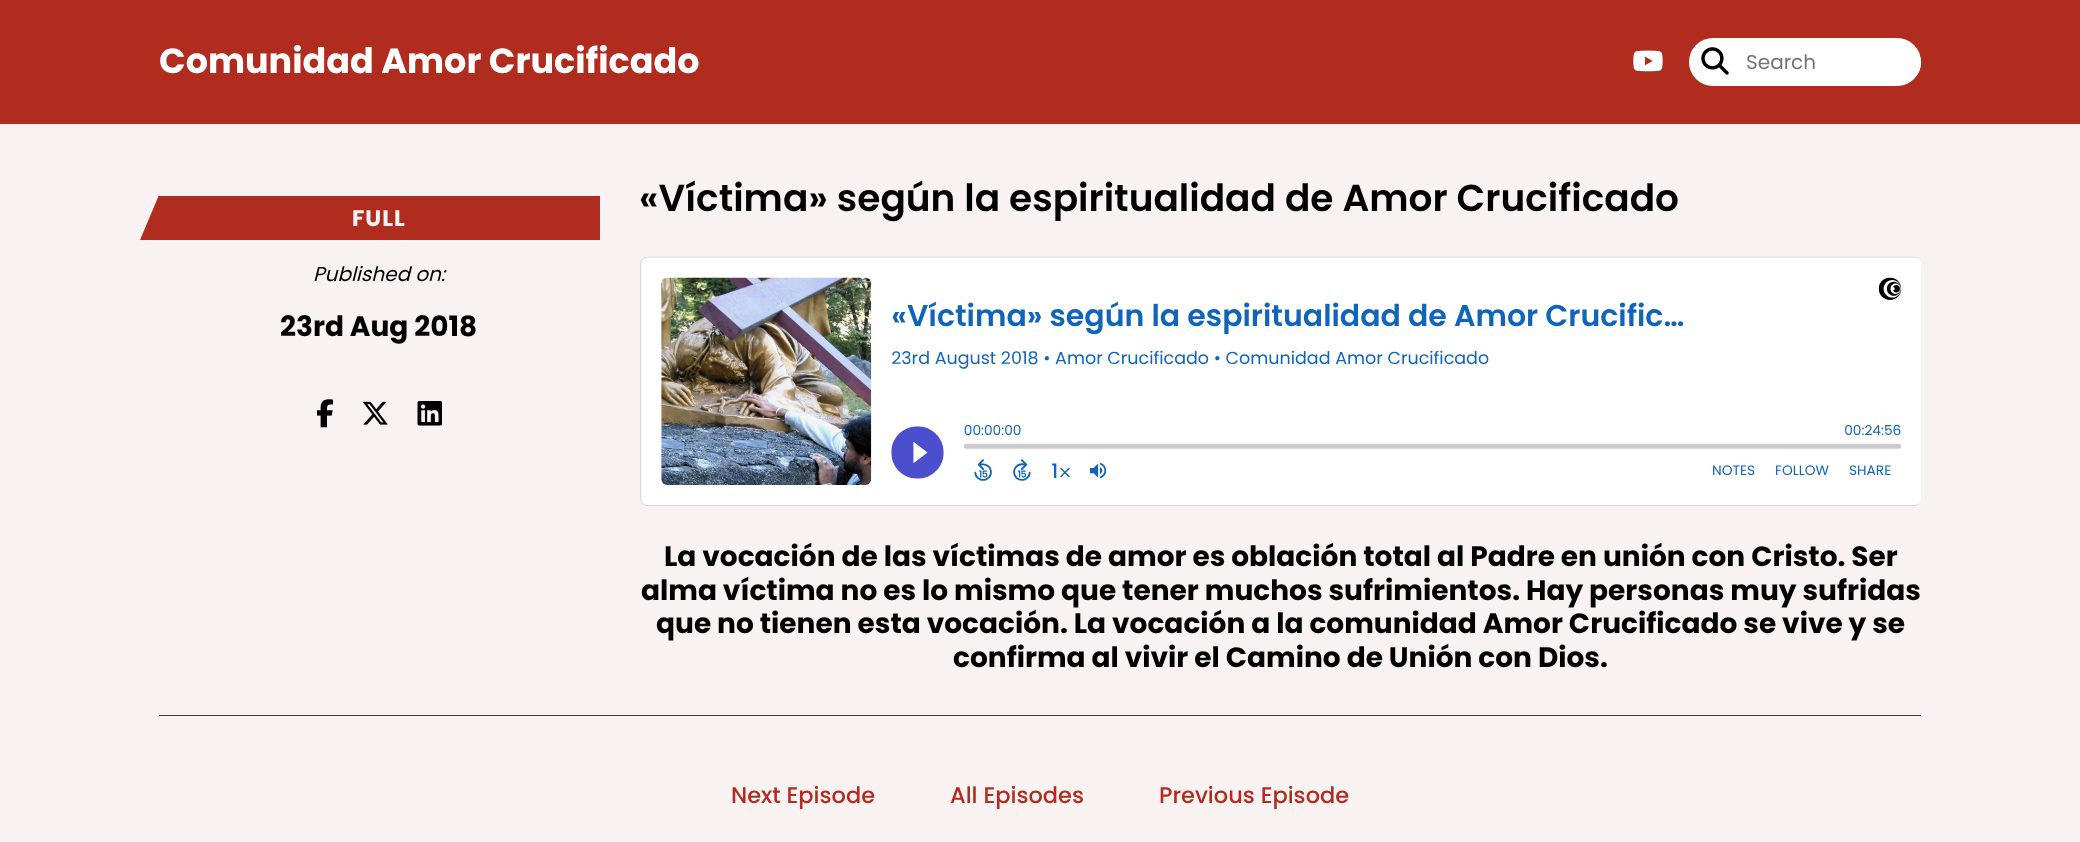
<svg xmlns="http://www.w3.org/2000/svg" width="2080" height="842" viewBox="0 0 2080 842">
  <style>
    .t1 { font: bold 35px Poppins; fill: #fff; }
    .t2 { font: 20px Poppins; fill: #757575; }
    .t3 { font: bold 22.5px Poppins; letter-spacing: 1px; fill: #f9f2f3; }
    .t4 { font: italic 20px Poppins; fill: #000; }
    .t5 { font: bold 28px Poppins; fill: #000; }
    .t6 { font: 600 37.5px Poppins; fill: #000; }
    .t7 { font: 500 22.5px Poppins; fill: #b02c1e; }
  </style>
  <rect width="100%" height="100%" fill="#b02c1e"/>
  <text x="159" y="73" class="t1">Comunidad Amor Crucificado</text>
  <image x="1633" y="50" width="30" height="22" href="images/1.png"/>
  <rect x="1689" y="38" width="232" height="48" rx="24" fill="#fff"/>
  <image x="1701" y="47" width="28" height="28" href="images/2.png"/>
  <rect x="1746" y="41" width="175" height="43" rx="21.5" fill="#fff"/>
  <text x="1746" y="69" class="t2">Search</text>
  <rect x="0" y="124" width="2080" height="718" fill="#f9f2f3"/>
  <rect x="159" y="715" width="1762" height="1" fill="#3a3c45"/>
  <rect x="159" y="196" width="441" height="44" fill="#b02c1e"/>
  <path d="M159 195V240H140Z" fill="#b02c1e"/>
  <text x="352" y="226" class="t3">FULL</text>
  <text x="313" y="281" class="t4">Published on:</text>
  <text x="280" y="336" class="t5">23rd Aug 2018</text>
  <image x="317" y="399" width="16" height="29" href="images/3.png"/>
  <image x="362" y="401" width="26" height="24" href="images/4.png"/>
  <image x="417" y="401" width="25" height="25" href="images/5.png"/>
  <text x="639" y="211" class="t6">«Víctima» según la espiritualidad de Amor Crucificado</text>
  <image x="640" y="256" width="1282" height="250" href="images/6.png"/>
  <text x="664" y="566" class="t5">La vocación de las víctimas de amor es oblación total al Padre en unión con Cristo. Ser</text>
  <text x="641" y="600" class="t5">alma víctima no es lo mismo que tener muchos sufrimientos. Hay personas muy sufridas</text>
  <text x="656" y="633" class="t5">que no tienen esta vocación. La vocación a la comunidad Amor Crucificado se vive y se</text>
  <text x="953" y="667" class="t5">confirma al vivir el Camino de Unión con Dios.</text>
  <text x="731" y="803" class="t7">Next Episode</text>
  <text x="950" y="803" class="t7">All Episodes</text>
  <text x="1159" y="803" class="t7">Previous Episode</text>
</svg>
